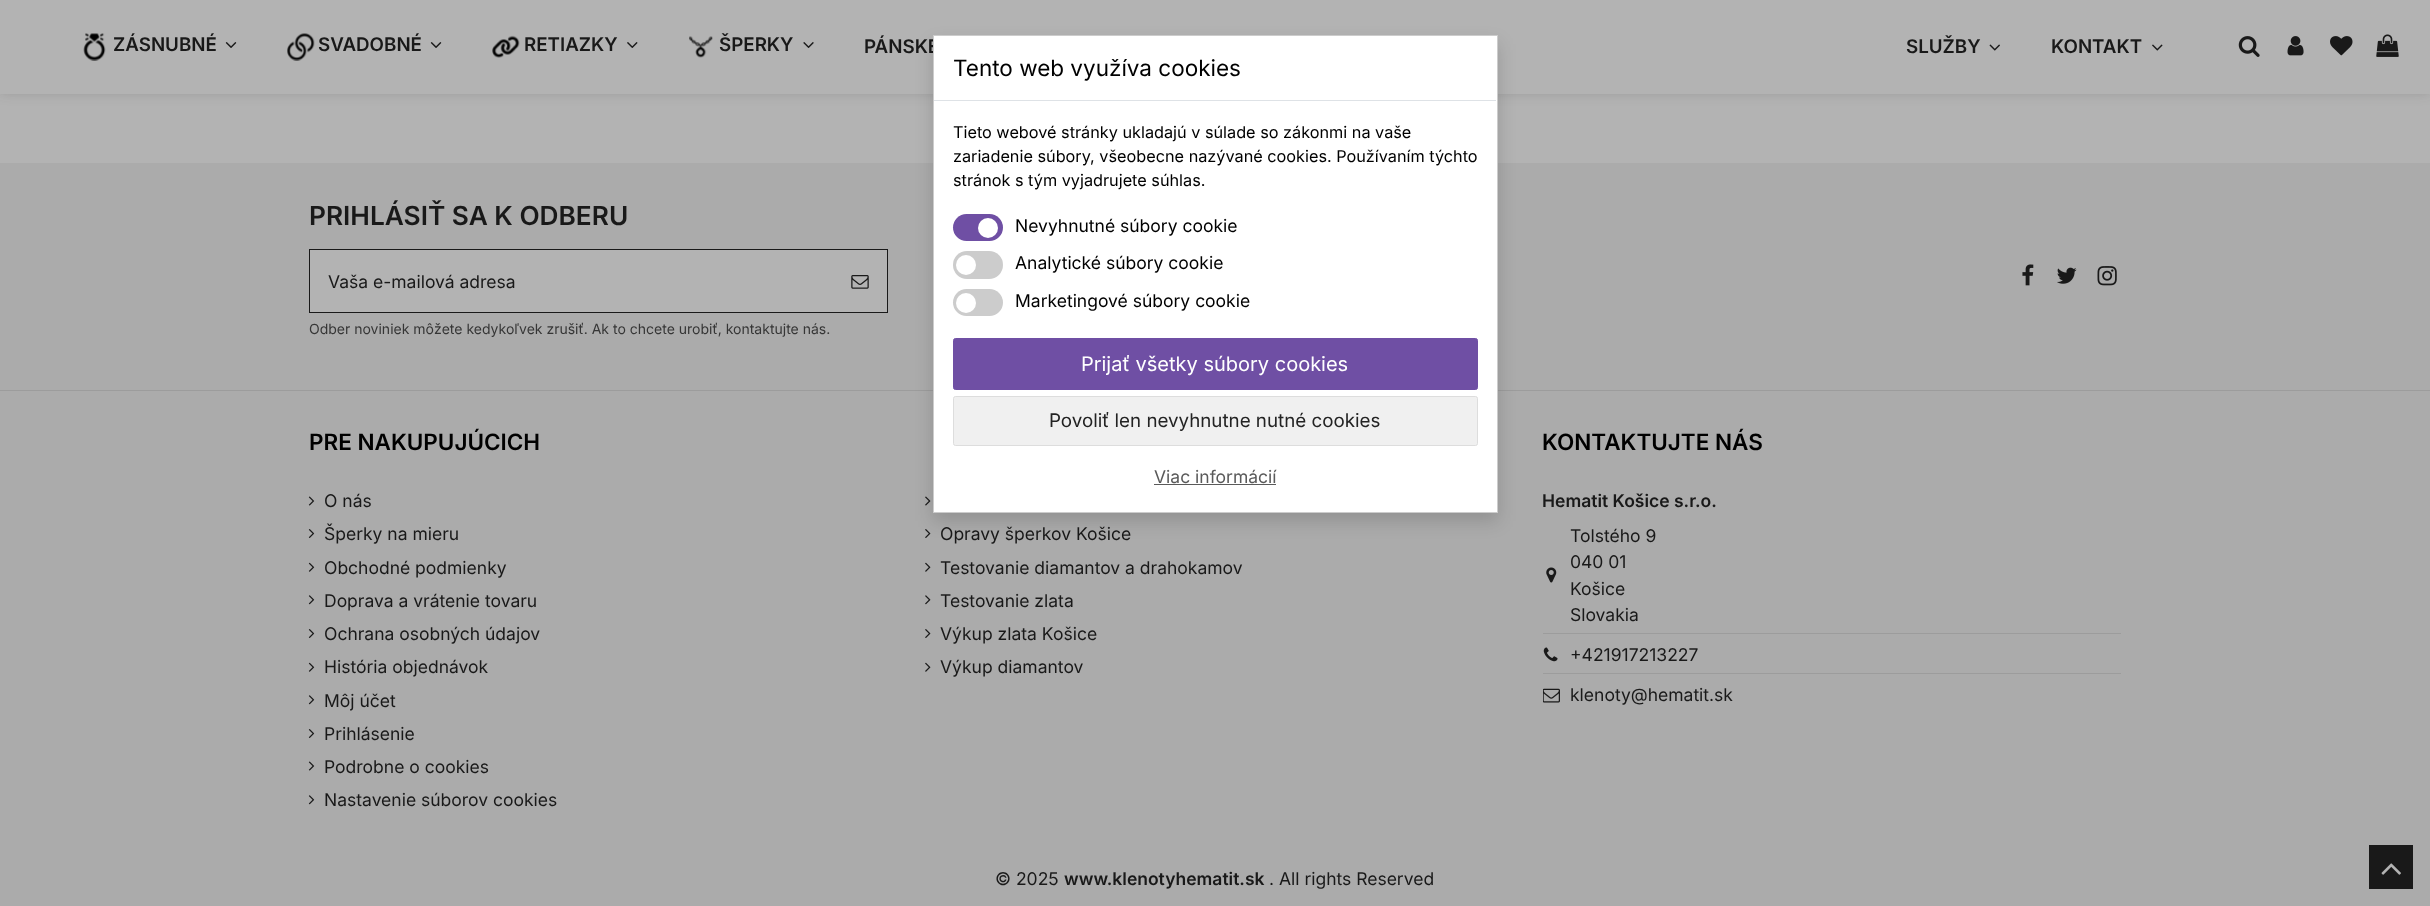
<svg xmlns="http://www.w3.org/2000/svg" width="2430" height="906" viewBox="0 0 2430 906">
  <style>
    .t1 { font: 600 18.75px Inter; fill: #191919; }
    .t2 { font: 600 26.25px Inter; fill: #191919; }
    .t3 { font: 17.5px Inter; fill: #191919; }
    .t4 { font: 14px Inter; fill: #363636; }
    .t5 { font: 600 22.5px Inter; fill: #000; }
    .t6 { font: 600 17.5px Inter; fill: #191919; }
    .t7 { font: 22.5px Inter; fill: #000; }
    .t8 { font: 16.25px Inter; fill: #000; }
    .t9 { font: 17.5px Inter; fill: #000; }
    .t10 { font: 20px Inter; fill: #fff; }
    .t11 { font: 18.75px Inter; fill: #232323; }
    .t12 { font: 17.5px Inter; fill: #5a5a5a; }
  </style>
  <rect width="100%" height="100%" fill="#b3b3b3"/>
  <rect x="0" y="-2" width="2430" height="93" fill="#2b282840" filter="blur(7px)"/>
  <rect x="0" y="0" width="2430" height="94" fill="#b3b3b3"/>
  <image x="83" y="33" width="23" height="28" href="images/1.png"/>
  <text x="113" y="51" class="t1">ZÁSNUBNÉ</text>
  <image x="225" y="42" width="12" height="6" href="images/2.png"/>
  <image x="287" y="33" width="28" height="28" href="images/3.png"/>
  <text x="318" y="51" class="t1">SVADOBNÉ</text>
  <image x="430" y="42" width="12" height="6" href="images/2.png"/>
  <image x="492" y="35" width="28" height="23" href="images/4.png"/>
  <text x="524" y="51" class="t1">RETIAZKY</text>
  <image x="627" y="42" width="11" height="6" href="images/5.png"/>
  <image x="689" y="36" width="24" height="22" href="images/6.png"/>
  <text x="719" y="51" class="t1">ŠPERKY</text>
  <image x="803" y="42" width="11" height="6" href="images/7.png"/>
  <text x="864" y="53" class="t1">PÁNSKE</text>
  <text x="1906" y="53" class="t1">SLUŽBY</text>
  <image x="1989" y="44" width="11" height="7" href="images/8.png"/>
  <text x="2051" y="53" class="t1">KONTAKT</text>
  <image x="2152" y="44" width="11" height="7" href="images/9.png"/>
  <image x="2238" y="36" width="22" height="21" href="images/10.png"/>
  <image x="2287" y="36" width="17" height="20" href="images/11.png"/>
  <image x="2330" y="36" width="23" height="20" href="images/12.png"/>
  <image x="2376" y="34" width="23" height="23" href="images/13.png"/>
  <rect x="0" y="163" width="2430" height="743" fill="#ababab"/>
  <text x="309" y="225" class="t2">PRIHLÁSIŤ SA K ODBERU</text>
  <rect x="309.5" y="249.5" width="578" height="63" fill="#b3b3b3" stroke="#191919"/>
  <text x="328" y="288" class="t3">Vaša e-mailová adresa</text>
  <image x="851" y="275" width="18" height="14" href="images/14.png"/>
  <text x="309" y="334" class="t4">Odber noviniek môžete kedykoľvek zrušiť. Ak to chcete urobiť, kontaktujte nás.</text>
  <image x="2022" y="264" width="12" height="22" href="images/15.png"/>
  <image x="2057" y="267" width="20" height="17" href="images/16.png"/>
  <image x="2097" y="266" width="20" height="20" href="images/17.png"/>
  <rect x="0" y="390" width="2430" height="1" fill="#9c9c9c"/>
  <text x="309" y="450" class="t5">PRE NAKUPUJÚCICH</text>
  <image x="308" y="496" width="7" height="10" href="images/18.png"/>
  <text x="324" y="507" class="t3">O nás</text>
  <image x="308" y="529" width="7" height="9" href="images/19.png"/>
  <text x="324" y="540" class="t3">Šperky na mieru</text>
  <image x="308" y="562" width="7" height="10" href="images/20.png"/>
  <text x="324" y="574" class="t3">Obchodné podmienky</text>
  <image x="308" y="595" width="7" height="10" href="images/21.png"/>
  <text x="324" y="607" class="t3">Doprava a vrátenie tovaru</text>
  <image x="308" y="629" width="7" height="9" href="images/19.png"/>
  <text x="324" y="640" class="t3">Ochrana osobných údajov</text>
  <image x="308" y="662" width="7" height="10" href="images/20.png"/>
  <text x="324" y="673" class="t3">História objednávok</text>
  <image x="308" y="695" width="7" height="10" href="images/21.png"/>
  <text x="324" y="707" class="t3">Môj účet</text>
  <image x="308" y="729" width="7" height="9" href="images/19.png"/>
  <text x="324" y="740" class="t3">Prihlásenie</text>
  <image x="308" y="761" width="7" height="10" href="images/18.png"/>
  <text x="324" y="773" class="t3">Podrobne o cookies</text>
  <image x="308" y="795" width="7" height="10" href="images/21.png"/>
  <text x="324" y="806" class="t3">Nastavenie súborov cookies</text>
  <image x="925" y="496" width="6" height="10" href="images/22.png"/>
  <image x="925" y="529" width="6" height="9" href="images/23.png"/>
  <text x="940" y="540" class="t3">Opravy šperkov Košice</text>
  <image x="925" y="562" width="6" height="10" href="images/24.png"/>
  <text x="940" y="574" class="t3">Testovanie diamantov a drahokamov</text>
  <image x="925" y="595" width="6" height="10" href="images/25.png"/>
  <text x="940" y="607" class="t3">Testovanie zlata</text>
  <image x="925" y="629" width="6" height="9" href="images/23.png"/>
  <text x="940" y="640" class="t3">Výkup zlata Košice</text>
  <image x="925" y="662" width="6" height="10" href="images/24.png"/>
  <text x="940" y="673" class="t3">Výkup diamantov</text>
  <text x="1542" y="450" class="t5">KONTAKTUJTE NÁS</text>
  <text x="1542" y="507" class="t6">Hematit Košice s.r.o.</text>
  <image x="1546" y="567" width="11" height="16" href="images/26.png"/>
  <text x="1570" y="542" class="t3">Tolstého 9</text>
  <text x="1570" y="568" class="t3">040 01</text>
  <text x="1570" y="595" class="t3">Košice</text>
  <text x="1570" y="621" class="t3">Slovakia</text>
  <rect x="1543" y="633" width="578" height="1" fill="#9c9c9c"/>
  <image x="1543" y="647" width="15" height="15" href="images/27.png"/>
  <text x="1570" y="661" class="t3">+421917213227</text>
  <rect x="1543" y="673" width="578" height="1" fill="#9c9c9c"/>
  <image x="1543" y="688" width="17" height="15" href="images/28.png"/>
  <text x="1570" y="701" class="t3">klenoty@hematit.sk</text>
  <text x="995" y="885" class="t3">© 2025</text>
  <text x="1064" y="885" class="t6">www.klenotyhematit.sk</text>
  <text x="1269" y="885" class="t3">. All rights Reserved</text>
  <rect x="933" y="44" width="565" height="477" fill="#00000026" filter="blur(9px)"/>
  <rect x="933.5" y="35.5" width="564" height="477" fill="#fff" stroke="#ccc"/>
  <rect x="934" y="100" width="562" height="1" fill="#dee2e6"/>
  <text x="953" y="76" class="t7">Tento web využíva cookies</text>
  <text x="953" y="138" class="t8">Tieto webové stránky ukladajú v súlade so zákonmi na vaše</text>
  <text x="953" y="162" class="t8">zariadenie súbory, všeobecne nazývané cookies. Používaním týchto</text>
  <text x="953" y="186" class="t8">stránok s tým vyjadrujete súhlas.</text>
  <rect x="953" y="214" width="50" height="27" rx="13.5" fill="#6f4fa4"/>
  <circle cx="988" cy="228" r="10" fill="#fff"/>
  <text x="1015" y="232" class="t9">Nevyhnutné súbory cookie</text>
  <rect x="953" y="251" width="50" height="28" rx="14" fill="#ccc"/>
  <circle cx="966" cy="265" r="10" fill="#fff"/>
  <text x="1015" y="269" class="t9">Analytické súbory cookie</text>
  <rect x="953" y="289" width="50" height="27" rx="13.5" fill="#ccc"/>
  <circle cx="966" cy="303" r="10" fill="#fff"/>
  <text x="1015" y="307" class="t9">Marketingové súbory cookie</text>
  <rect x="953.5" y="338.5" width="524" height="51" rx="2" fill="#6f4fa4" stroke="#6f4fa4"/>
  <text x="1081" y="371" class="t10">Prijať všetky súbory cookies</text>
  <rect x="953.5" y="396.5" width="524" height="49" rx="2" fill="#f0f0f0" stroke="#ddd"/>
  <text x="1049" y="427" class="t11">Povoliť len nevyhnutne nutné cookies</text>
  <text x="1154" y="483" class="t12">Viac informácií</text>
  <rect x="1154" y="484" width="122" height="1" fill="#5a5a5a"/>
  <rect x="2369" y="845" width="44" height="44" fill="#191919"/>
  <image x="2381" y="863" width="20" height="12" href="images/29.png"/>
</svg>
